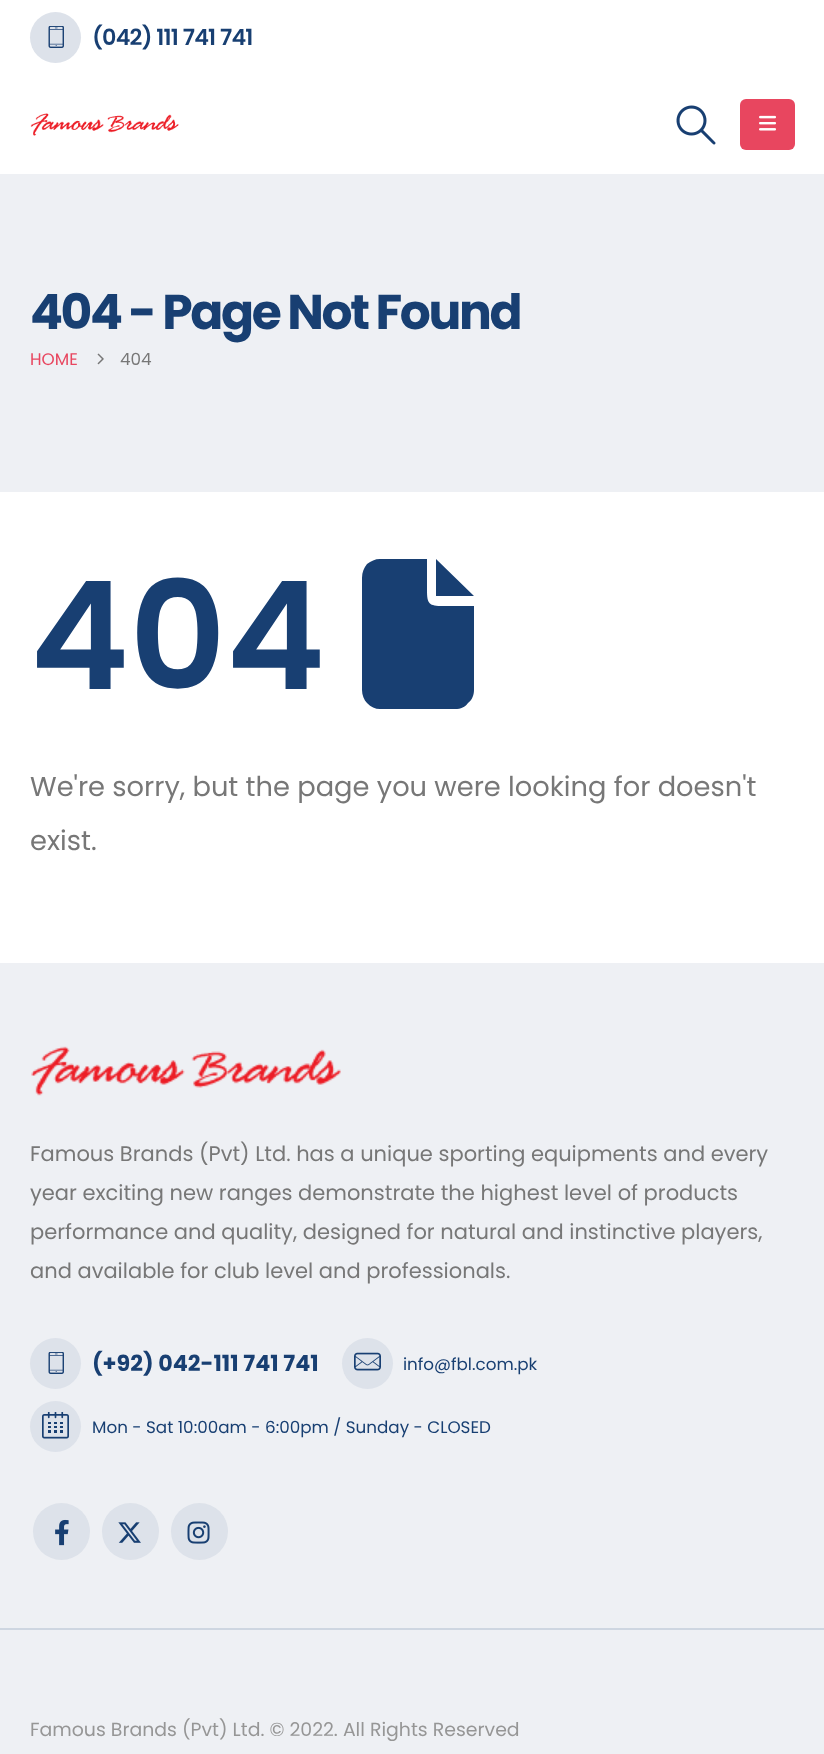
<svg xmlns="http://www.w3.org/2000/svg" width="824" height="1754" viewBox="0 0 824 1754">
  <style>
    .t1 { font: 600 22.25px Poppins; letter-spacing: -0.75px; fill: #183f72; }
    .t2 { font: bold 48.75px Poppins; letter-spacing: -2.4px; fill: #183f72; }
    .t3 { font: 16.75px Poppins; fill: #e8465f; }
    .t4 { font: 16.75px Poppins; fill: #777; }
    .t5 { font: 600 150px Poppins; fill: #183f72; }
    .t6 { font: 27.3px Poppins; fill: #777; }
    .t7 { font: 21px Poppins; fill: #777; }
    .t8 { font: bold 22.25px Poppins; fill: #183f72; }
    .t9 { font: 16.75px Poppins; fill: #183f72; }
    .t10 { font: 18.9px Poppins; fill: #969696; }
  </style>
  <rect width="100%" height="100%" fill="#fff"/>
  <circle cx="55.5" cy="37.5" r="25.5" fill="#dde2ea"/>
  <image x="48" y="26" width="16" height="22" href="images/1.png"/>
  <text x="92" y="45" class="t1">(042) 111 741 741</text>
  <image x="30" y="113" width="149" height="23" href="images/2.png"/>
  <image x="676" y="105" width="40" height="40" href="images/3.png"/>
  <rect x="740" y="99" width="55" height="51" rx="6" fill="#e8465f"/>
  <image x="759" y="115" width="17" height="16" href="images/4.png"/>
  <rect x="0" y="174" width="824" height="318" fill="#eef0f4"/>
  <text x="30" y="329" class="t2">404 - Page Not Found</text>
  <text x="30" y="365" class="t3">HOME</text>
  <image x="97" y="353" width="7" height="12" href="images/5.png"/>
  <text x="120" y="365" class="t4">404</text>
  <text x="30" y="689" class="t5">404</text>
  <path d="M362 578C362 572 364 568 367 564C371 561 375 559 380 559H427V590C427 604 429 606 443 606H474V690C474 695 472 700 468 703C465 707 461 709 455 709H380C375 709 371 707 367 703C364 700 362 695 362 690ZM474 596H436V559Z" fill="#183f72"/>
  <text x="30" y="796" class="t6">We're sorry, but the page you were looking for doesn't</text>
  <text x="30" y="850" class="t6">exist.</text>
  <rect x="0" y="963" width="824" height="791" fill="#eef0f4"/>
  <rect x="0" y="1628" width="824" height="2" fill="#ced6e1"/>
  <image x="31" y="1046" width="310" height="50" href="images/6.png"/>
  <text x="30" y="1161" class="t7">Famous Brands (Pvt) Ltd. has a unique sporting equipments and every</text>
  <text x="30" y="1200" class="t7">year exciting new ranges demonstrate the highest level of products</text>
  <text x="30" y="1239" class="t7">performance and quality, designed for natural and instinctive players,</text>
  <text x="30" y="1278" class="t7">and available for club level and professionals.</text>
  <circle cx="55.5" cy="1363.5" r="25.5" fill="#dde2ea"/>
  <image x="48" y="1352" width="16" height="22" href="images/1.png"/>
  <text x="92" y="1371" class="t8">(+92) 042-111 741 741</text>
  <circle cx="367.5" cy="1363.5" r="25.5" fill="#dde2ea"/>
  <image x="354" y="1352" width="27" height="19" href="images/7.png"/>
  <text x="403" y="1370" class="t9">info@fbl.com.pk</text>
  <circle cx="55.5" cy="1426.5" r="25.5" fill="#dde2ea"/>
  <image x="42" y="1412" width="27" height="27" href="images/8.png"/>
  <text x="92" y="1433" class="t9">Mon - Sat 10:00am - 6:00pm / Sunday - CLOSED</text>
  <circle cx="61.5" cy="1531.5" r="28.5" fill="#dde2ea"/>
  <image x="55" y="1519" width="14" height="27" href="images/9.png"/>
  <circle cx="130.5" cy="1531.5" r="28.5" fill="#dde2ea"/>
  <image x="118" y="1522" width="23" height="21" href="images/10.png"/>
  <circle cx="199.5" cy="1531.5" r="28.5" fill="#dde2ea"/>
  <image x="187" y="1521" width="23" height="23" href="images/11.png"/>
  <text x="30" y="1736" class="t10">Famous Brands (Pvt) Ltd. © 2022. All Rights Reserved</text>
</svg>
